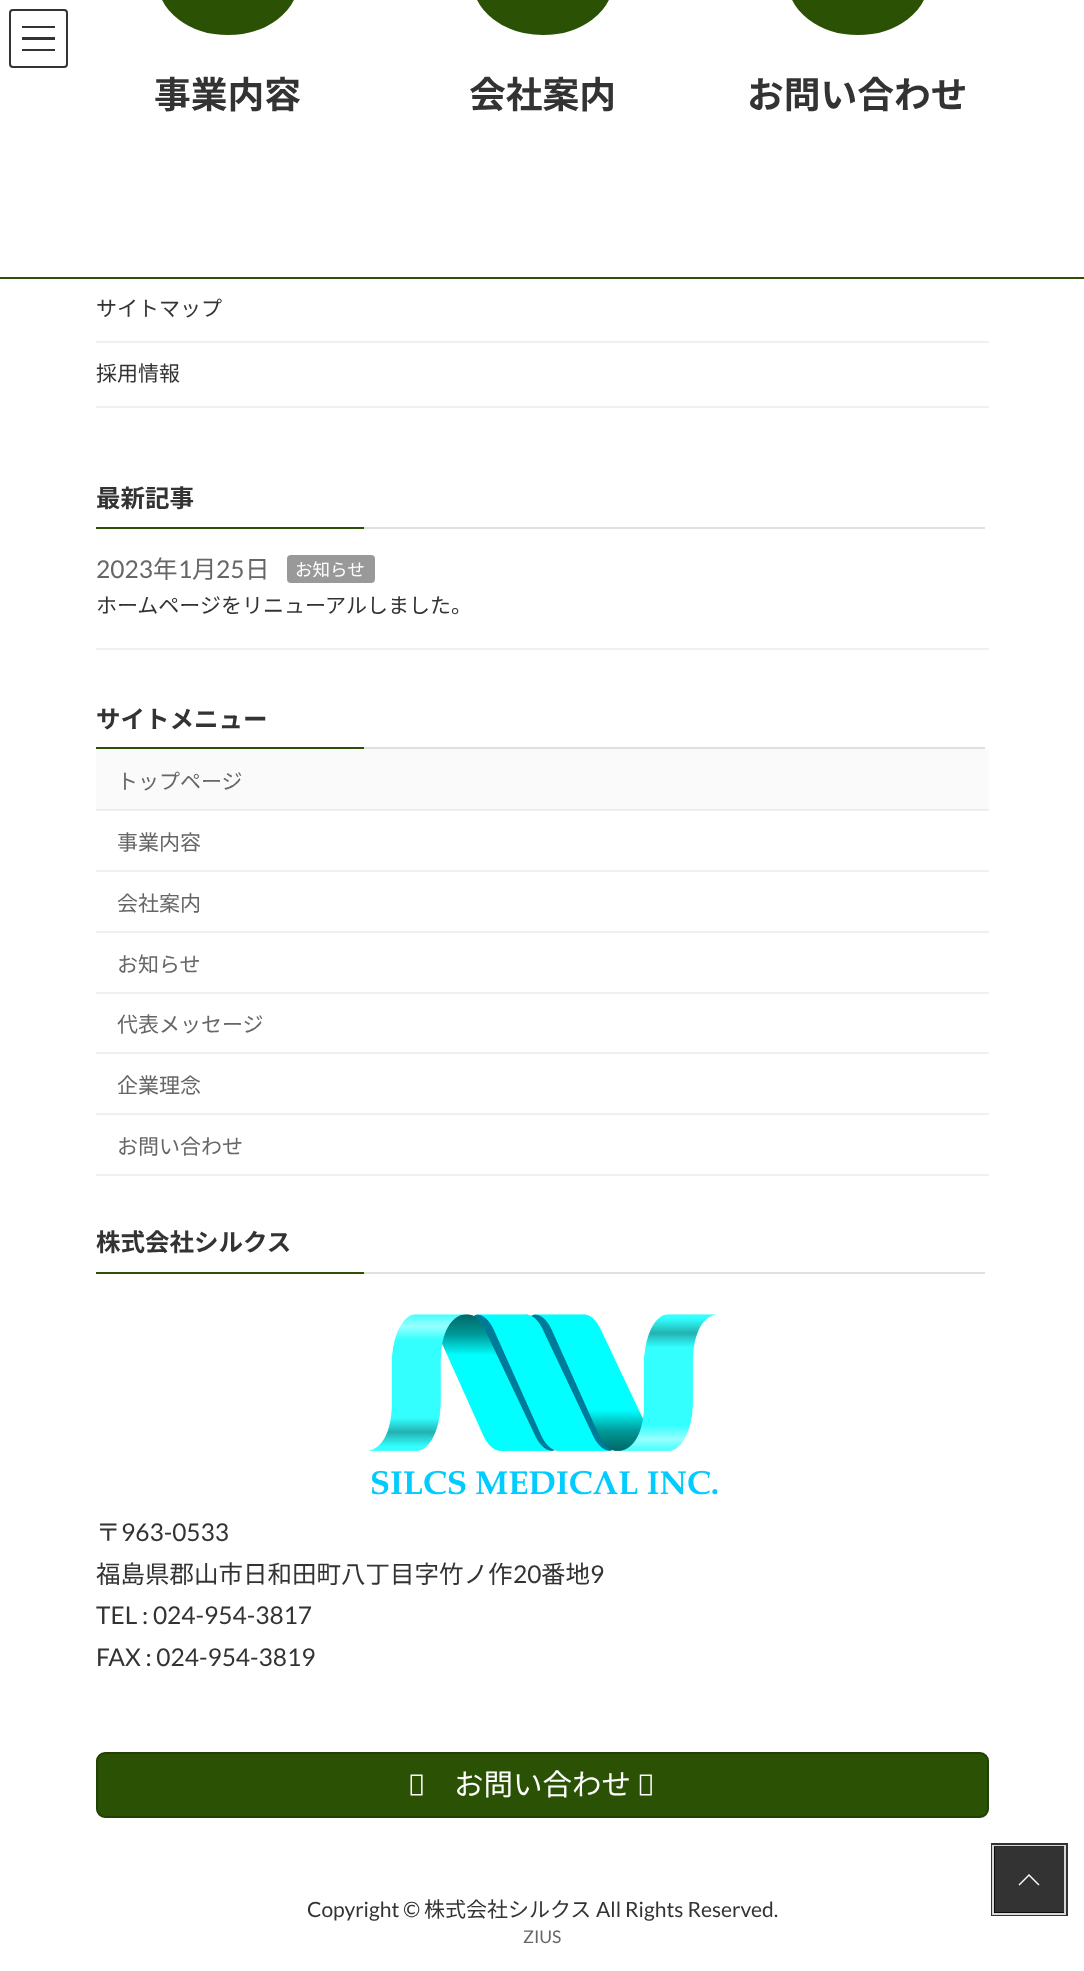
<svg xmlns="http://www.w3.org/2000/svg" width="1084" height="1971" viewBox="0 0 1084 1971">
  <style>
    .t1 { font: bold 36.75px Noto Sans JP; fill: #333; }
    .t2 { font: 21px Noto Sans JP; fill: #333; }
    .t3 { font: bold 24.5px Noto Sans JP; fill: #333; }
    .t4 { font: 24.5px Lato; fill: #666; }
    .t5 { font: 24.5px Noto Sans JP; fill: #666; }
    .t6 { font: 17.5px Noto Sans JP; fill: #fff; }
    .t7 { font: 21px Noto Sans JP; fill: #666; }
    .t8 { font: 24.5px Noto Sans JP; fill: #333; }
    .t9 { font: 24.5px Lato; fill: #333; }
    .t10 { font: 29.5px Noto Sans JP; fill: #fff; }
    .t11 { font: 21px Lato; fill: #333; }
    .t12 { font: 17.5px Lato; fill: #666; }
  </style>
  <rect width="100%" height="100%" fill="#fff"/>
  <rect x="96" y="810" width="893" height="1" fill="#f0f0f0"/>
  <rect x="22" y="26" width="33" height="2" fill="#333"/>
  <rect x="22" y="37" width="33" height="3" fill="#333"/>
  <rect x="22" y="49" width="33" height="2" fill="#333"/>
  <rect x="10" y="10" width="57" height="57" rx="3" fill="none" stroke="#333" stroke-width="2"/>
  <rect x="159" y="-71" width="138" height="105" rx="69" fill="#2b5104" stroke="#2b5104" stroke-width="2"/>
  <text x="154" y="108" class="t1">事業内容</text>
  <rect x="474" y="-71" width="138" height="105" rx="69" fill="#2b5104" stroke="#2b5104" stroke-width="2"/>
  <text x="469" y="108" class="t1">会社案内</text>
  <rect x="789" y="-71" width="138" height="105" rx="69" fill="#2b5104" stroke="#2b5104" stroke-width="2"/>
  <text x="747" y="108" class="t1">お問い合わせ</text>
  <rect x="0" y="277" width="1084" height="2" fill="#2b5104"/>
  <rect x="96" y="341" width="893" height="2" fill="#f0f0f0"/>
  <text x="96" y="316" class="t2">サイトマップ</text>
  <rect x="96" y="406" width="893" height="2" fill="#f0f0f0"/>
  <text x="96" y="381" class="t2">採用情報</text>
  <rect x="364" y="527" width="621" height="2" fill="#e0e0e0"/>
  <text x="96" y="507" class="t3">最新記事</text>
  <rect x="96" y="527" width="268" height="2" fill="#2b5104"/>
  <rect x="96" y="648" width="893" height="2" fill="#f0f0f0"/>
  <text x="96" y="578" class="t4">2023</text>
  <text x="153" y="578" class="t5">年</text>
  <text x="178" y="578" class="t4">1</text>
  <text x="192" y="578" class="t5">月</text>
  <text x="216" y="578" class="t4">25</text>
  <text x="245" y="578" class="t5">日</text>
  <rect x="287" y="555" width="88" height="28" rx="4" fill="#999"/>
  <text x="295" y="576" class="t6">お知らせ</text>
  <text x="96" y="613" class="t2">ホームページをリニューアルしました。</text>
  <rect x="364" y="747" width="621" height="2" fill="#e0e0e0"/>
  <text x="96" y="728" class="t3">サイトメニュー</text>
  <rect x="96" y="747" width="268" height="2" fill="#2b5104"/>
  <rect x="96" y="749" width="893" height="60" fill="#fafafa"/>
  <rect x="96" y="809" width="893" height="1" fill="#ebebeb"/>
  <text x="117" y="789" class="t7">トップページ</text>
  <rect x="96" y="870" width="893" height="2" fill="#f0f0f0"/>
  <text x="117" y="850" class="t7">事業内容</text>
  <rect x="96" y="931" width="893" height="2" fill="#f0f0f0"/>
  <text x="117" y="911" class="t7">会社案内</text>
  <rect x="96" y="992" width="893" height="2" fill="#f0f0f0"/>
  <text x="117" y="972" class="t7">お知らせ</text>
  <rect x="96" y="1052" width="893" height="2" fill="#f0f0f0"/>
  <text x="117" y="1032" class="t7">代表メッセージ</text>
  <rect x="96" y="1113" width="893" height="2" fill="#f0f0f0"/>
  <text x="117" y="1093" class="t7">企業理念</text>
  <rect x="96" y="1174" width="893" height="2" fill="#f0f0f0"/>
  <text x="117" y="1154" class="t7">お問い合わせ</text>
  <rect x="364" y="1272" width="621" height="2" fill="#e0e0e0"/>
  <text x="96" y="1251" class="t3">株式会社シルクス</text>
  <rect x="96" y="1272" width="268" height="2" fill="#2b5104"/>
  <image x="368" y="1314" width="350" height="181" href="images/1.png"/>
  <text x="96" y="1541" class="t8">〒</text>
  <text x="121" y="1541" class="t9">963-0533</text>
  <text x="96" y="1583" class="t8">福島県郡山市日和田町八丁目字竹ノ作</text>
  <text x="513" y="1583" class="t9">20</text>
  <text x="541" y="1583" class="t8">番地</text>
  <text x="590" y="1583" class="t9">9</text>
  <text x="96" y="1624" class="t9">TEL : 024-954-3817</text>
  <text x="96" y="1666" class="t9">FAX : 024-954-3819</text>
  <rect x="97" y="1753" width="891" height="64" rx="8" fill="#2b5104" stroke="#224003" stroke-width="2"/>
  <image x="410" y="1774" width="13" height="22" href="images/2.png"/>
  <text x="454" y="1795" class="t10">お問い合わせ</text>
  <image x="639" y="1774" width="13" height="22" href="images/3.png"/>
  <text x="307" y="1917" class="t11">Copyright ©</text>
  <text x="424" y="1917" class="t2">株式会社シルクス</text>
  <text x="596" y="1917" class="t11">All Rights Reserved.</text>
  <text x="523" y="1943" class="t12">ZIUS</text>
  <rect x="993" y="1845" width="73" height="69" fill="none" stroke="#333" stroke-width="4"/>
  <rect x="993" y="1846" width="72" height="68" fill="none" stroke="#d6d6d6" stroke-width="2"/>
  <rect x="994" y="1846" width="70" height="67" fill="#000000cc"/>
  <path d="M1039.5 1884.5L1038.5 1885.5L1029 1876L1019.5 1885.5L1018.5 1884.5L1029 1874Z" fill="#fff"/>
</svg>
